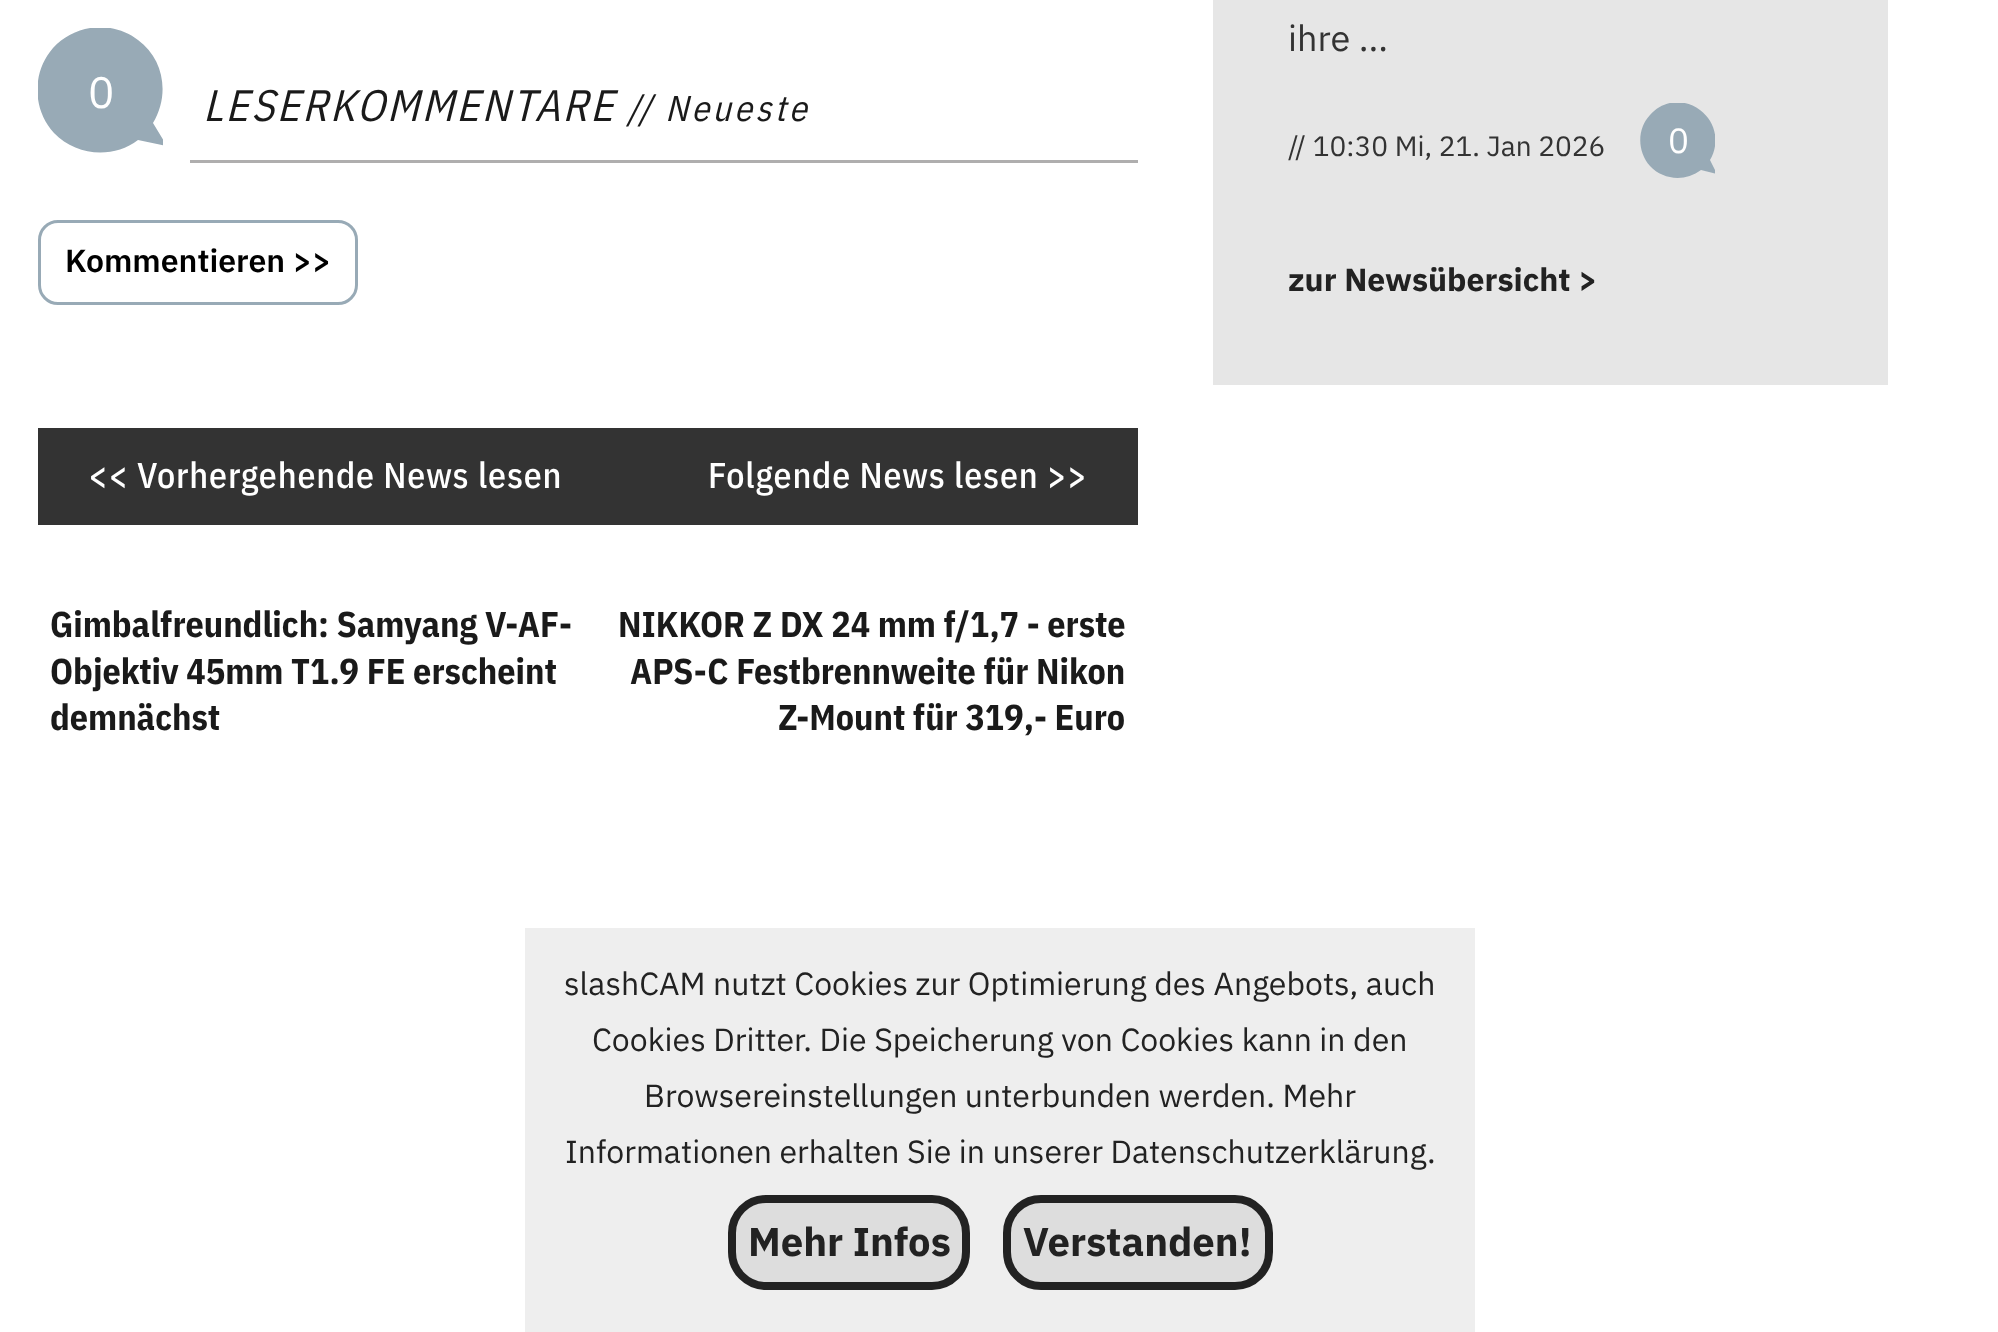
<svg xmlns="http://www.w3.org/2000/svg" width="1998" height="1332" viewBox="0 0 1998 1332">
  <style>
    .t1 { font: 44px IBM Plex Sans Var; fill: #fff; }
    .t2 { font: italic 44px IBM Plex Sans Var; letter-spacing: 2.4px; fill: #1a1a1a; }
    .t3 { font: italic 36px IBM Plex Sans Var; letter-spacing: 3.25px; fill: #1a1a1a; }
    .t4 { font: 600 32px IBM Plex Sans Var; fill: #000; }
    .t5 { font: 500 36px IBM Plex Sans Var; letter-spacing: 0.8px; fill: #fff; }
    .t6 { font: bold 36px IBM Plex Sans Var; fill: #1a1a1a; }
    .t7 { font: 36px IBM Plex Sans Var; fill: #333; }
    .t8 { font: 28px IBM Plex Sans Var; fill: #333; }
    .t9 { font: 35px IBM Plex Sans Var; fill: #fff; }
    .t10 { font: bold 32px 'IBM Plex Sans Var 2'; fill: #222; }
    .t11 { font: 32px IBM Plex Sans Var; fill: #222; }
    .t12 { font: bold 40px 'IBM Plex Sans Var 2'; fill: #222; }
  </style>
  <defs>
    <clipPath id="clip1"><rect x="38" y="28" width="125" height="125"/></clipPath>
    <clipPath id="clip2"><rect x="1640" y="103" width="75" height="75"/></clipPath>
  </defs>
  <rect width="100%" height="100%" fill="#fff"/>
  <g clip-path="url(#clip1)">
    <path d="M167 146L153 123C170 95 164 59 138 40C112 20 75 24 53 48C32 72 32 109 54 133C76 156 113 159 138 140Z" fill="#98aab6"/>
  </g>
  <text x="88" y="108" class="t1">0</text>
  <text x="203" y="121" class="t2">LESERKOMMENTARE</text>
  <text x="627" y="121" class="t3">// Neueste</text>
  <rect x="190" y="160" width="948" height="3" fill="#afaeae"/>
  <rect x="39.5" y="221.5" width="317" height="82" rx="18.5" fill="none" stroke="#98aab6" stroke-width="3"/>
  <text x="65" y="272" class="t4">Kommentieren &gt;&gt;</text>
  <rect x="38" y="428" width="1100" height="97" fill="#333"/>
  <text x="88" y="488" class="t5">&lt;&lt; Vorhergehende News lesen</text>
  <text x="708" y="488" class="t5">Folgende News lesen &gt;&gt;</text>
  <text x="50" y="637" class="t6">Gimbalfreundlich: Samyang V-AF-</text>
  <text x="50" y="684" class="t6">Objektiv 45mm T1.9 FE erscheint</text>
  <text x="50" y="730" class="t6">demnächst</text>
  <text x="618" y="637" class="t6">NIKKOR Z DX 24 mm f/1,7 - erste</text>
  <text x="630" y="684" class="t6">APS-C Festbrennweite für Nikon</text>
  <text x="778" y="730" class="t6">Z-Mount für 319,- Euro</text>
  <rect x="1213" y="0" width="675" height="385" fill="#e6e6e6"/>
  <text x="1288" y="51" class="t7">ihre ...</text>
  <text x="1288" y="156" class="t8">// 10:30 Mi, 21. Jan 2026</text>
  <g clip-path="url(#clip2)">
    <path d="M1717 174L1710 160C1720 143 1716 122 1700 110C1684 98 1663 100 1650 115C1637 129 1637 151 1650 166C1663 180 1685 182 1701 170Z" fill="#98aab6"/>
  </g>
  <text x="1668" y="153" class="t9">0</text>
  <text x="1288" y="291" class="t10">zur Newsübersicht &gt;</text>
  <rect x="525" y="928" width="950" height="404" fill="#eee"/>
  <text x="564" y="995" class="t11">slashCAM nutzt Cookies zur Optimierung des Angebots, auch</text>
  <text x="592" y="1051" class="t11">Cookies Dritter. Die Speicherung von Cookies kann in den</text>
  <text x="644" y="1107" class="t11">Browsereinstellungen unterbunden werden. Mehr</text>
  <text x="565" y="1163" class="t11">Informationen erhalten Sie in unserer Datenschutzerklärung.</text>
  <rect x="732" y="1199" width="234" height="87" rx="34" fill="#ddd" stroke="#222" stroke-width="8"/>
  <text x="748" y="1256" class="t12">Mehr Infos</text>
  <rect x="1007" y="1199" width="262" height="87" rx="34" fill="#ddd" stroke="#222" stroke-width="8"/>
  <text x="1023" y="1256" class="t12">Verstanden!</text>
</svg>
